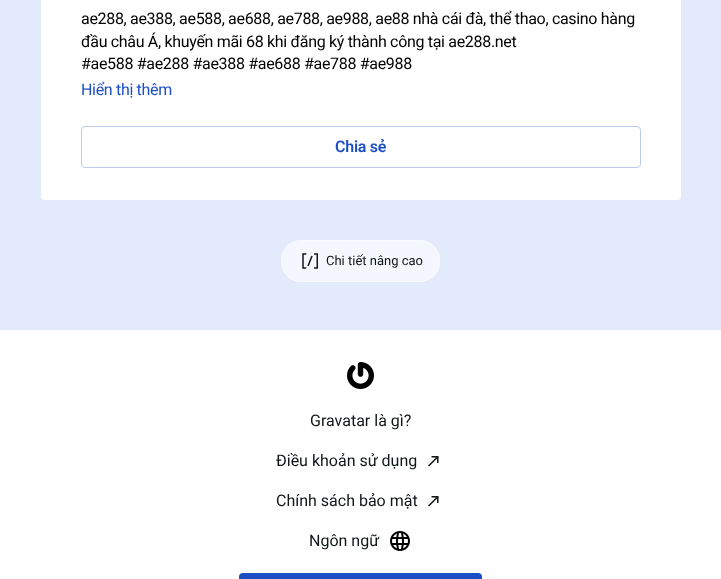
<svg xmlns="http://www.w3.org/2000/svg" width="721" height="579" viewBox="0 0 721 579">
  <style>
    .t1 { font: 16px Roboto; letter-spacing: -0.32px; fill: #000; }
    .t2 { font: 16px Roboto; letter-spacing: -0.32px; fill: #1d4fc4; }
    .t3 { font: 600 16px Roboto; letter-spacing: -0.25px; fill: #1d4fc4; }
    .t4 { font: 13px Roboto; fill: #101517; }
    .t5 { font: 16px Roboto; fill: #101517; }
  </style>
  <rect width="100%" height="100%" fill="#fff"/>
  <rect x="0" y="0" width="721" height="330" fill="#e3eafc"/>
  <rect x="41" y="-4" width="640" height="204" rx="4" fill="#fff"/>
  <text x="81" y="24" class="t1">ae288, ae388, ae588, ae688, ae788, ae988, ae88 nhà cái đà, thể thao, casino hàng</text>
  <text x="81" y="47" class="t1">đầu châu Á, khuyến mãi 68 khi đăng ký thành công tại ae288.net</text>
  <text x="81" y="69" class="t1">#ae588 #ae288 #ae388 #ae688 #ae788 #ae988</text>
  <text x="81" y="95" class="t2">Hiển thị thêm</text>
  <rect x="81.5" y="126.5" width="559" height="41" rx="3.5" fill="none" stroke="#bbcaed"/>
  <text x="335" y="152" class="t3">Chia sẻ</text>
  <rect x="281" y="240" width="159" height="42" rx="20" fill="#f4f7fe"/>
  <rect x="281.5" y="240.5" width="158" height="41" rx="19.5" fill="none" stroke="#ffffff66"/>
  <image x="302" y="253" width="16" height="16" href="images/1.png"/>
  <text x="326" y="265" class="t4">Chi tiết nâng cao</text>
  <image x="347" y="362" width="27" height="27" href="images/2.png"/>
  <text x="310" y="426" class="t5">Gravatar là gì?</text>
  <text x="276" y="466" class="t5">Điều khoản sử dụng</text>
  <image x="428" y="456" width="11" height="11" href="images/3.png"/>
  <text x="276" y="506" class="t5">Chính sách bảo mật</text>
  <image x="428" y="496" width="11" height="11" href="images/3.png"/>
  <text x="309" y="546" class="t5">Ngôn ngữ</text>
  <image x="390" y="531" width="20" height="20" href="images/4.png"/>
  <rect x="239" y="573" width="243" height="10" rx="4" fill="#1d4fc4"/>
</svg>
